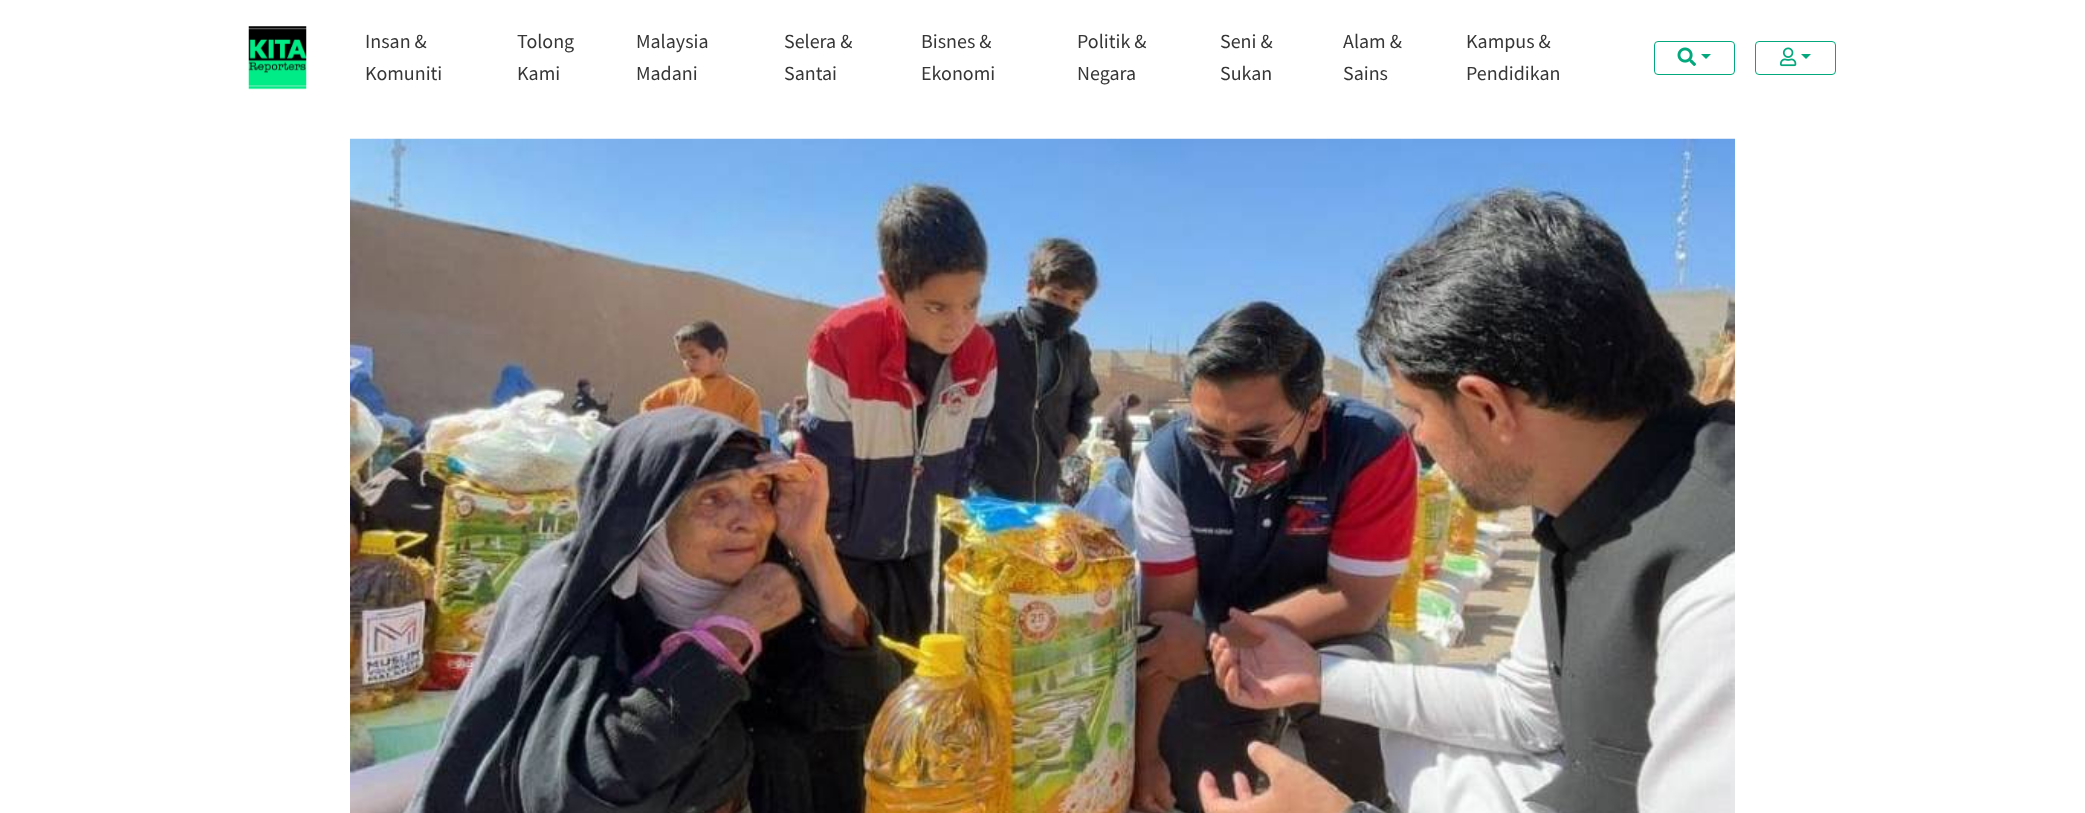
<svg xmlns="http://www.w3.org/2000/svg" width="2085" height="813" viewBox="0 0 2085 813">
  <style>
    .t1 { font: 20px Source Sans Pro; fill: #363636; }
  </style>
  <rect width="100%" height="100%" fill="#fff"/>
  <image x="248" y="26" width="59" height="64" href="images/1.png"/>
  <text x="365" y="48" class="t1">Insan &amp;</text>
  <text x="365" y="80" class="t1">Komuniti</text>
  <text x="517" y="48" class="t1">Tolong</text>
  <text x="517" y="80" class="t1">Kami</text>
  <text x="636" y="48" class="t1">Malaysia</text>
  <text x="636" y="80" class="t1">Madani</text>
  <text x="784" y="48" class="t1">Selera &amp;</text>
  <text x="784" y="80" class="t1">Santai</text>
  <text x="921" y="48" class="t1">Bisnes &amp;</text>
  <text x="921" y="80" class="t1">Ekonomi</text>
  <text x="1077" y="48" class="t1">Politik &amp;</text>
  <text x="1077" y="80" class="t1">Negara</text>
  <text x="1220" y="48" class="t1">Seni &amp;</text>
  <text x="1220" y="80" class="t1">Sukan</text>
  <text x="1343" y="48" class="t1">Alam &amp;</text>
  <text x="1343" y="80" class="t1">Sains</text>
  <text x="1466" y="48" class="t1">Kampus &amp;</text>
  <text x="1466" y="80" class="t1">Pendidikan</text>
  <rect x="1654.5" y="41.5" width="80" height="33" rx="3.5" fill="none" stroke="#03a87c"/>
  <image x="1677" y="47" width="20" height="19" href="images/2.png"/>
  <path d="M1701 54H1711L1706 59Z" fill="#03a87c"/>
  <rect x="1755.5" y="41.5" width="80" height="33" rx="3.5" fill="none" stroke="#03a87c"/>
  <image x="1780" y="47" width="17" height="20" href="images/3.png"/>
  <path d="M1801 54H1811L1806 59Z" fill="#03a87c"/>
  <image x="350" y="138" width="1385" height="675" href="images/4.png"/>
</svg>
